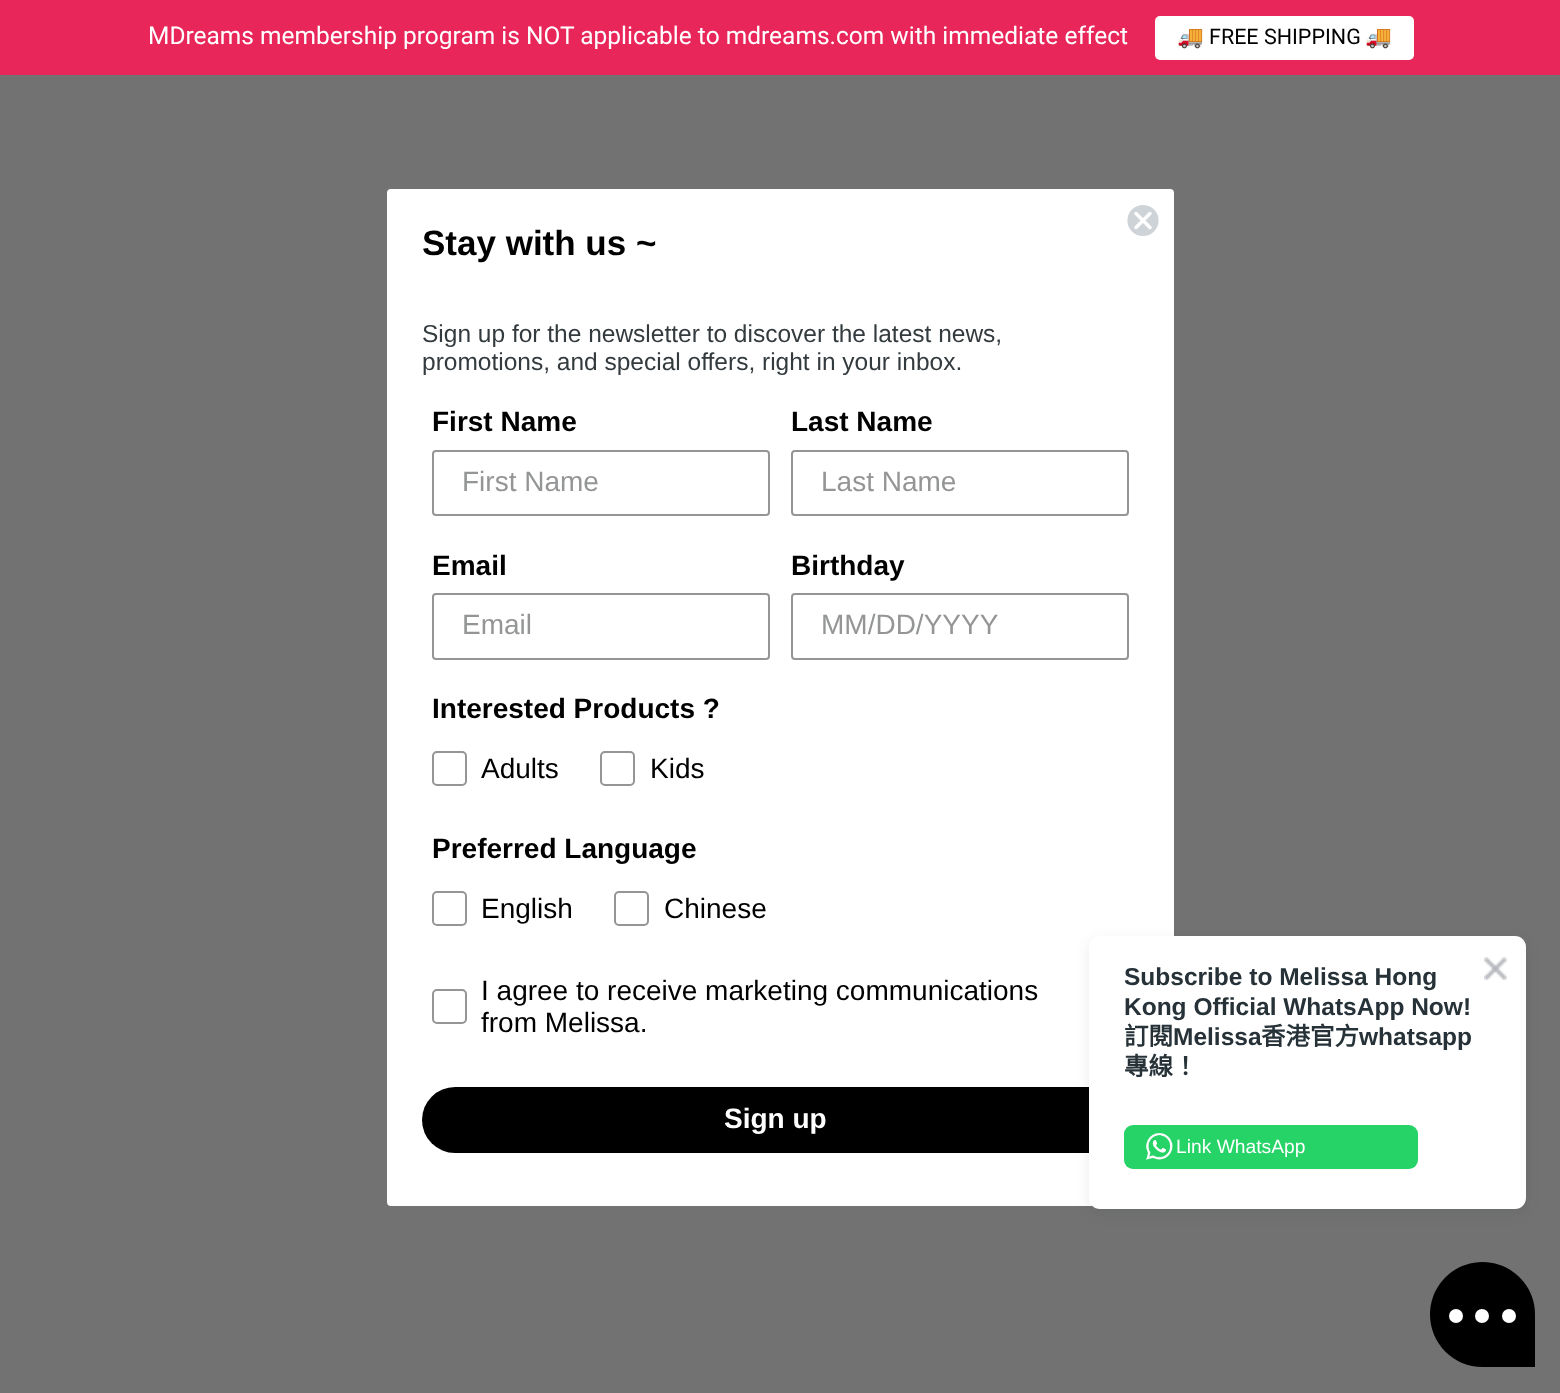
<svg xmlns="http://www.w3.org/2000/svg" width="1560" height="1393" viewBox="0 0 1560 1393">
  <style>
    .t1 { font: 24.5px Roboto; fill: #fff; }
    .t2 { font: 21.5px Noto Color Emoji; fill: #000; }
    .t3 { font: 21.5px Roboto; fill: #000; }
    .t4 { font: bold 35px Liberation Sans; fill: #000; }
    .t5 { font: 24.5px Liberation Sans; fill: #343b3e; }
    .t6 { font: bold 28px Liberation Sans; fill: #000; }
    .t7 { font: 28px Liberation Sans; fill: #949596; }
    .t8 { font: 28px Liberation Sans; fill: #000; }
    .t9 { font: bold 28px Liberation Sans; fill: #fff; }
    .t10 { font: bold 24.5px Liberation Sans; fill: #263238; }
    .t11 { font: bold 24.5px Noto Sans CJK TC; fill: #263238; }
    .t12 { font: 19.25px Liberation Sans; fill: #fff; }
  </style>
  <defs>
    <clipPath id="clip1"><rect x="1125" y="203" width="35" height="35"/></clipPath>
  </defs>
  <rect width="100%" height="100%" fill="#727272"/>
  <rect x="0" y="0" width="1560" height="75" fill="#e9265a"/>
  <text x="148" y="44" class="t1">MDreams membership program is NOT applicable to mdreams.com with immediate effect</text>
  <rect x="1155" y="16" width="259" height="44" rx="5" fill="#fff"/>
  <text x="1177" y="44" class="t2">🚚</text>
  <text x="1209" y="44" class="t3">FREE SHIPPING</text>
  <text x="1365" y="44" class="t2">🚚</text>
  <rect x="387" y="189" width="787" height="1017" rx="4" fill="#fff"/>
  <circle cx="1143" cy="220.5" r="16.5" fill="#ced3d8"/>
  <g clip-path="url(#clip1)">
    <circle cx="1143" cy="220.5" r="16.5" fill="none" stroke="#fff" stroke-width="1.8"/>
  </g>
  <path d="M1136 213.5L1150 227.5M1136 227.5L1150 213.5Z" fill="none" stroke="#fff" stroke-width="3.5" stroke-linecap="round" stroke-linejoin="round"/>
  <text x="422" y="255" class="t4">Stay with us ~</text>
  <text x="422" y="342" class="t5">Sign up for the newsletter to discover the latest news,</text>
  <text x="422" y="370" class="t5">promotions, and special offers, right in your inbox.</text>
  <text x="432" y="431" class="t6">First Name</text>
  <rect x="433" y="451" width="336" height="64" rx="3" fill="none" stroke="#949596" stroke-width="2"/>
  <text x="462" y="491" class="t7">First Name</text>
  <text x="791" y="431" class="t6">Last Name</text>
  <rect x="792" y="451" width="336" height="64" rx="3" fill="none" stroke="#949596" stroke-width="2"/>
  <text x="821" y="491" class="t7">Last Name</text>
  <text x="432" y="575" class="t6">Email</text>
  <rect x="433" y="594" width="336" height="65" rx="3" fill="none" stroke="#949596" stroke-width="2"/>
  <text x="462" y="634" class="t7">Email</text>
  <text x="791" y="575" class="t6">Birthday</text>
  <rect x="792" y="594" width="336" height="65" rx="3" fill="none" stroke="#949596" stroke-width="2"/>
  <text x="821" y="634" class="t7">MM/DD/YYYY</text>
  <text x="432" y="718" class="t6">Interested Products ?</text>
  <rect x="433" y="752" width="33" height="33" rx="4" fill="none" stroke="#949596" stroke-width="2"/>
  <text x="481" y="778" class="t8">Adults</text>
  <rect x="601" y="752" width="33" height="33" rx="4" fill="none" stroke="#949596" stroke-width="2"/>
  <text x="650" y="778" class="t8">Kids</text>
  <text x="432" y="858" class="t6">Preferred Language</text>
  <rect x="433" y="892" width="33" height="33" rx="4" fill="none" stroke="#949596" stroke-width="2"/>
  <text x="481" y="918" class="t8">English</text>
  <rect x="615" y="892" width="33" height="33" rx="4" fill="none" stroke="#949596" stroke-width="2"/>
  <text x="664" y="918" class="t8">Chinese</text>
  <rect x="433" y="990" width="33" height="33" rx="4" fill="none" stroke="#949596" stroke-width="2"/>
  <text x="481" y="1000" class="t8">I agree to receive marketing communications</text>
  <text x="481" y="1032" class="t8">from Melissa.</text>
  <rect x="422" y="1087" width="707" height="66" rx="33" fill="#000"/>
  <text x="724" y="1128" class="t9">Sign up</text>
  <rect x="1089" y="940" width="437" height="273" rx="11" fill="#232f3517" filter="blur(7px)"/>
  <rect x="1089" y="936" width="437" height="273" rx="11" fill="#fff"/>
  <text x="1124" y="985" class="t10">Subscribe to Melissa Hong</text>
  <text x="1124" y="1015" class="t10">Kong Official WhatsApp Now!</text>
  <text x="1124" y="1045" class="t11">訂閱</text>
  <text x="1173" y="1045" class="t10">Melissa</text>
  <text x="1261" y="1045" class="t11">香港官方</text>
  <text x="1359" y="1045" class="t10">whatsapp</text>
  <text x="1124" y="1075" class="t11">專線！</text>
  <image x="1484" y="957" width="23" height="23" href="images/1.png"/>
  <rect x="1124" y="1125" width="294" height="44" rx="9" fill="#25d366"/>
  <image x="1146" y="1132" width="27" height="28" href="images/2.png"/>
  <text x="1176" y="1153" class="t12">Link WhatsApp</text>
  <path d="M1482.5 1262C1511.5 1262 1535 1285.5 1535 1314.5V1367H1482.5C1453.5 1367 1430 1343.5 1430 1314.5C1430 1285.5 1453.5 1262 1482.5 1262Z" fill="#000"/>
  <circle cx="1456" cy="1316" r="7" fill="#fff"/>
  <circle cx="1482" cy="1316" r="7" fill="#fff"/>
  <circle cx="1509" cy="1316" r="7" fill="#fff"/>
</svg>
